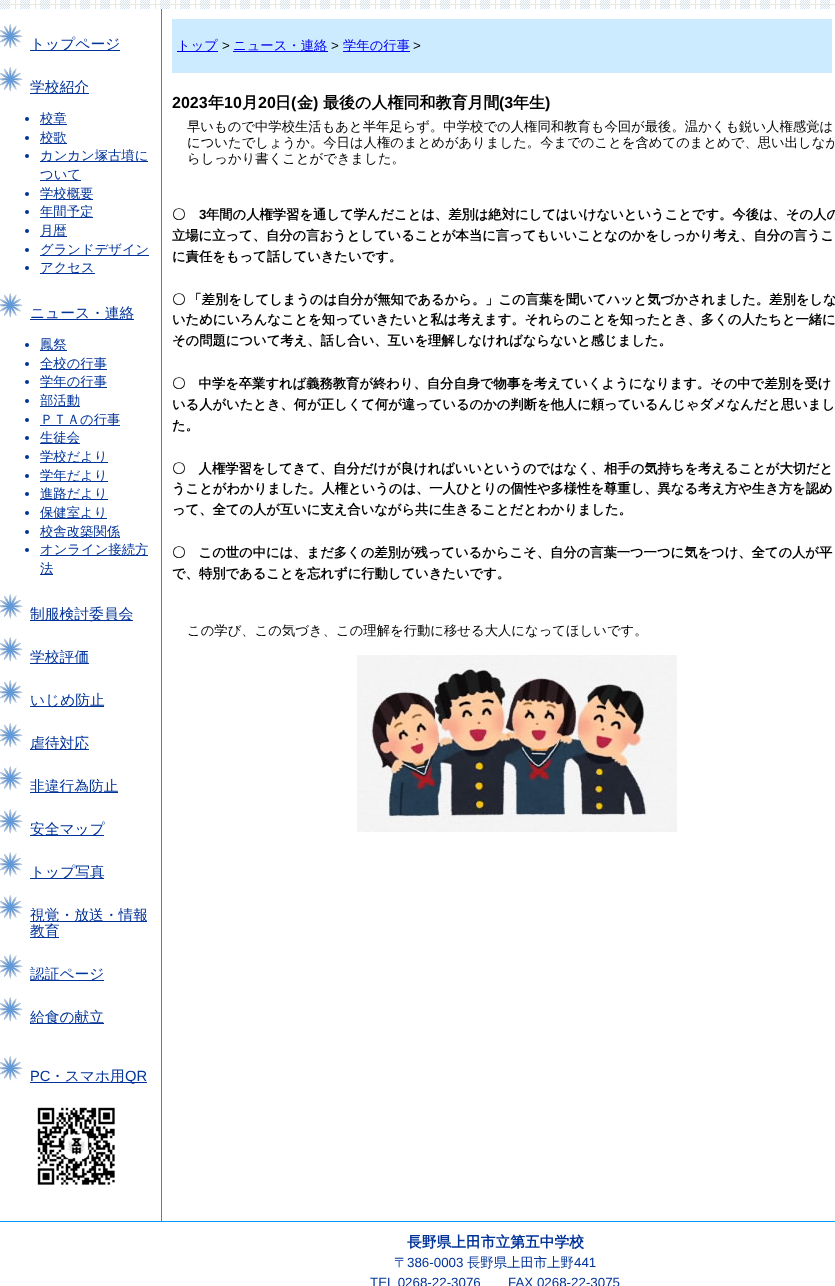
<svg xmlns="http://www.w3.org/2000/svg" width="835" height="1286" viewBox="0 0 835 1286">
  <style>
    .t1 { font: 500 14.75px WenQuanYi Zen Hei; fill: #039; }
    .t2 { font: 500 13.35px WenQuanYi Zen Hei; fill: #039; }
    .t3 { font: 14.75px Liberation Sans; fill: #039; }
    .t4 { font: 500 13.35px WenQuanYi Zen Hei; fill: #00e; }
    .t5 { font: 13.35px Liberation Sans; fill: #000; }
    .t6 { font: bold 16px Liberation Sans; fill: #000; }
    .t7 { font: bold 16px WenQuanYi Zen Hei; fill: #000; }
    .t8 { font: 500 13.35px WenQuanYi Zen Hei; fill: #000; }
    .t9 { font: bold 13.3px WenQuanYi Zen Hei; fill: #000; }
    .t10 { font: bold 13.3px Liberation Sans; fill: #000; }
    .t11 { font: bold 14.75px WenQuanYi Zen Hei; fill: #039; }
    .t12 { font: 13.35px Liberation Sans; fill: #039; }
  </style>
  <rect width="100%" height="100%" fill="#fff"/>
  <image x="0" y="0" width="835" height="9" href="images/1.png"/>
  <image x="0" y="24" width="23" height="25" href="images/2.png"/>
  <rect x="30" y="50" width="90" height="1" fill="#039"/>
  <text x="30" y="49" class="t1">トップページ</text>
  <image x="0" y="67" width="23" height="25" href="images/2.png"/>
  <rect x="30" y="93" width="59" height="1" fill="#039"/>
  <text x="30" y="92" class="t1">学校紹介</text>
  <circle cx="27" cy="119" r="2" fill="#039"/>
  <rect x="40" y="124" width="27" height="1" fill="#039"/>
  <text x="40" y="123" class="t2">校章</text>
  <circle cx="27" cy="138" r="2" fill="#039"/>
  <rect x="40" y="143" width="27" height="1" fill="#039"/>
  <text x="40" y="142" class="t2">校歌</text>
  <circle cx="27" cy="156" r="2" fill="#039"/>
  <rect x="40" y="161" width="108" height="1" fill="#039"/>
  <text x="40" y="160" class="t2">カンカン塚古墳に</text>
  <rect x="40" y="180" width="41" height="1" fill="#039"/>
  <text x="40" y="179" class="t2">ついて</text>
  <circle cx="27" cy="194" r="2" fill="#039"/>
  <rect x="40" y="199" width="53" height="1" fill="#039"/>
  <text x="40" y="198" class="t2">学校概要</text>
  <circle cx="27" cy="212" r="2" fill="#039"/>
  <rect x="40" y="217" width="53" height="1" fill="#039"/>
  <text x="40" y="216" class="t2">年間予定</text>
  <circle cx="27" cy="231" r="2" fill="#039"/>
  <rect x="40" y="236" width="27" height="1" fill="#039"/>
  <text x="40" y="235" class="t2">月暦</text>
  <circle cx="27" cy="250" r="2" fill="#039"/>
  <rect x="40" y="255" width="109" height="1" fill="#039"/>
  <text x="40" y="254" class="t2">グランドデザイン</text>
  <circle cx="27" cy="268" r="2" fill="#039"/>
  <rect x="40" y="273" width="55" height="1" fill="#039"/>
  <text x="40" y="272" class="t2">アクセス</text>
  <image x="0" y="293" width="23" height="25" href="images/2.png"/>
  <rect x="30" y="319" width="104" height="1" fill="#039"/>
  <text x="30" y="318" class="t1">ニュース・連絡</text>
  <circle cx="27" cy="345" r="2" fill="#039"/>
  <rect x="40" y="350" width="27" height="1" fill="#039"/>
  <text x="40" y="349" class="t2">鳳祭</text>
  <circle cx="27" cy="364" r="2" fill="#039"/>
  <rect x="40" y="369" width="67" height="1" fill="#039"/>
  <text x="40" y="368" class="t2">全校の行事</text>
  <circle cx="27" cy="382" r="2" fill="#039"/>
  <rect x="40" y="387" width="67" height="1" fill="#039"/>
  <text x="40" y="386" class="t2">学年の行事</text>
  <circle cx="27" cy="401" r="2" fill="#039"/>
  <rect x="40" y="406" width="40" height="1" fill="#039"/>
  <text x="40" y="405" class="t2">部活動</text>
  <circle cx="27" cy="420" r="2" fill="#039"/>
  <rect x="40" y="425" width="80" height="1" fill="#039"/>
  <text x="40" y="424" class="t2">ＰＴＡの行事</text>
  <circle cx="27" cy="438" r="2" fill="#039"/>
  <rect x="40" y="443" width="40" height="1" fill="#039"/>
  <text x="40" y="442" class="t2">生徒会</text>
  <circle cx="27" cy="457" r="2" fill="#039"/>
  <rect x="40" y="462" width="68" height="1" fill="#039"/>
  <text x="40" y="461" class="t2">学校だより</text>
  <circle cx="27" cy="476" r="2" fill="#039"/>
  <rect x="40" y="481" width="68" height="1" fill="#039"/>
  <text x="40" y="480" class="t2">学年だより</text>
  <circle cx="27" cy="494" r="2" fill="#039"/>
  <rect x="40" y="499" width="68" height="1" fill="#039"/>
  <text x="40" y="498" class="t2">進路だより</text>
  <circle cx="27" cy="513" r="2" fill="#039"/>
  <rect x="40" y="518" width="67" height="1" fill="#039"/>
  <text x="40" y="517" class="t2">保健室より</text>
  <circle cx="27" cy="532" r="2" fill="#039"/>
  <rect x="40" y="537" width="80" height="1" fill="#039"/>
  <text x="40" y="536" class="t2">校舎改築関係</text>
  <circle cx="27" cy="550" r="2" fill="#039"/>
  <rect x="40" y="555" width="108" height="1" fill="#039"/>
  <text x="40" y="554" class="t2">オンライン接続方</text>
  <rect x="40" y="574" width="13" height="1" fill="#039"/>
  <text x="40" y="573" class="t2">法</text>
  <image x="0" y="594" width="23" height="25" href="images/2.png"/>
  <rect x="30" y="620" width="103" height="1" fill="#039"/>
  <text x="30" y="619" class="t1">制服検討委員会</text>
  <image x="0" y="637" width="23" height="25" href="images/2.png"/>
  <rect x="30" y="663" width="59" height="1" fill="#039"/>
  <text x="30" y="662" class="t1">学校評価</text>
  <image x="0" y="680" width="23" height="25" href="images/2.png"/>
  <rect x="30" y="706" width="74" height="1" fill="#039"/>
  <text x="30" y="705" class="t1">いじめ防止</text>
  <image x="0" y="723" width="23" height="25" href="images/2.png"/>
  <rect x="30" y="749" width="59" height="1" fill="#039"/>
  <text x="30" y="748" class="t1">虐待対応</text>
  <image x="0" y="766" width="23" height="25" href="images/2.png"/>
  <rect x="30" y="792" width="88" height="1" fill="#039"/>
  <text x="30" y="791" class="t1">非違行為防止</text>
  <image x="0" y="809" width="23" height="25" href="images/2.png"/>
  <rect x="30" y="835" width="74" height="1" fill="#039"/>
  <text x="30" y="834" class="t1">安全マップ</text>
  <image x="0" y="852" width="23" height="25" href="images/2.png"/>
  <rect x="30" y="878" width="74" height="1" fill="#039"/>
  <text x="30" y="877" class="t1">トップ写真</text>
  <image x="0" y="895" width="23" height="25" href="images/2.png"/>
  <rect x="30" y="921" width="117" height="1" fill="#039"/>
  <text x="30" y="920" class="t1">視覚・放送・情報</text>
  <rect x="30" y="937" width="29" height="1" fill="#039"/>
  <text x="30" y="936" class="t1">教育</text>
  <image x="0" y="954" width="23" height="25" href="images/2.png"/>
  <rect x="30" y="980" width="74" height="1" fill="#039"/>
  <text x="30" y="979" class="t1">認証ページ</text>
  <image x="0" y="997" width="23" height="25" href="images/2.png"/>
  <rect x="30" y="1023" width="74" height="1" fill="#039"/>
  <text x="30" y="1022" class="t1">給食の献立</text>
  <image x="0" y="1056" width="23" height="25" href="images/2.png"/>
  <text x="30" y="1081" class="t3">PC</text>
  <rect x="30" y="1082" width="117" height="1" fill="#039"/>
  <text x="50" y="1081" class="t1">・スマホ用</text>
  <text x="125" y="1081" class="t3">QR</text>
  <image x="37" y="1107" width="78" height="78" href="images/3.png"/>
  <rect x="161" y="9" width="1" height="1212" fill="#09f"/>
  <rect x="172" y="19" width="660" height="54" fill="#ccebff"/>
  <rect x="177" y="51" width="41" height="1" fill="#00e"/>
  <text x="177" y="50" class="t4">トップ</text>
  <text x="222" y="50" class="t5">&gt;</text>
  <rect x="233" y="51" width="95" height="1" fill="#00e"/>
  <text x="233" y="50" class="t4">ニュース・連絡</text>
  <text x="331" y="50" class="t5">&gt;</text>
  <rect x="343" y="51" width="67" height="1" fill="#00e"/>
  <text x="343" y="50" class="t4">学年の行事</text>
  <text x="413" y="50" class="t5">&gt;</text>
  <text x="172" y="108" class="t6">2023</text>
  <text x="208" y="108" class="t7">年</text>
  <text x="224" y="108" class="t6">10</text>
  <text x="242" y="108" class="t7">月</text>
  <text x="258" y="108" class="t6">20</text>
  <text x="275" y="108" class="t7">日</text>
  <text x="291" y="108" class="t6">(</text>
  <text x="297" y="108" class="t7">金</text>
  <text x="313" y="108" class="t6">)</text>
  <text x="323" y="108" class="t7">最後の人権同和教育月間</text>
  <text x="499" y="108" class="t6">(3</text>
  <text x="513" y="108" class="t7">年生</text>
  <text x="545" y="108" class="t6">)</text>
  <text x="187" y="131" class="t8">早いもので中学校生活もあと半年足らず。中学校での人権同和教育も今回が最後。温かくも鋭い人権感覚は</text>
  <text x="187" y="147" class="t8">についたでしょうか。今日は人権のまとめがありました。今までのことを含めてのまとめで、思い出しなが</text>
  <text x="187" y="163" class="t8">らしっかり書くことができました。</text>
  <text x="172" y="219" class="t9">〇</text>
  <text x="199" y="219" class="t10">3</text>
  <text x="206" y="219" class="t9">年間の人権学習を通して学んだことは、差別は絶対にしてはいけないということです。今後は、その人の</text>
  <text x="172" y="240" class="t9">立場に立って、自分の言おうとしていることが本当に言ってもいいことなのかをしっかり考え、自分の言うこ</text>
  <text x="172" y="261" class="t9">に責任をもって話していきたいです。</text>
  <text x="172" y="304" word-spacing="-1" class="t9">〇 「差別をしてしまうのは自分が無知であるから。」この言葉を聞いてハッと気づかされました。差別をしな</text>
  <text x="172" y="324" class="t9">いためにいろんなことを知っていきたいと私は考えます。それらのことを知ったとき、多くの人たちと一緒に</text>
  <text x="172" y="345" class="t9">その問題について考え、話し合い、互いを理解しなければならないと感じました。</text>
  <text x="172" y="388" class="t9">〇　中学を卒業すれば義務教育が終わり、自分自身で物事を考えていくようになります。その中で差別を受け</text>
  <text x="172" y="409" class="t9">いる人がいたとき、何が正しくて何が違っているのかの判断を他人に頼っているんじゃダメなんだと思いまし</text>
  <text x="172" y="430" class="t9">た。</text>
  <text x="172" y="473" class="t9">〇　人権学習をしてきて、自分だけが良ければいいというのではなく、相手の気持ちを考えることが大切だと</text>
  <text x="172" y="493" class="t9">うことがわかりました。人権というのは、一人ひとりの個性や多様性を尊重し、異なる考え方や生き方を認め</text>
  <text x="172" y="514" class="t9">って、全ての人が互いに支え合いながら共に生きることだとわかりました。</text>
  <text x="172" y="557" class="t9">〇　この世の中には、まだ多くの差別が残っているからこそ、自分の言葉一つ一つに気をつけ、全ての人が平</text>
  <text x="172" y="578" class="t9">で、特別であることを忘れずに行動していきたいです。</text>
  <text x="187" y="635" class="t8">この学び、この気づき、この理解を行動に移せる大人になってほしいです。</text>
  <image x="357" y="655" width="320" height="177" href="images/4.png"/>
  <rect x="0" y="1221" width="835" height="1" fill="#09f"/>
  <text x="407" y="1247" class="t11">長野県上田市立第五中学校</text>
  <text x="394" y="1267" class="t2">〒</text>
  <text x="407" y="1267" class="t12">386-0003</text>
  <text x="467" y="1267" class="t2">長野県上田市上野</text>
  <text x="574" y="1267" class="t12">441</text>
  <text x="370" y="1287" class="t12">TEL 0268-22-3076</text>
  <text x="508" y="1287" class="t12">FAX 0268-22-3075</text>
</svg>
